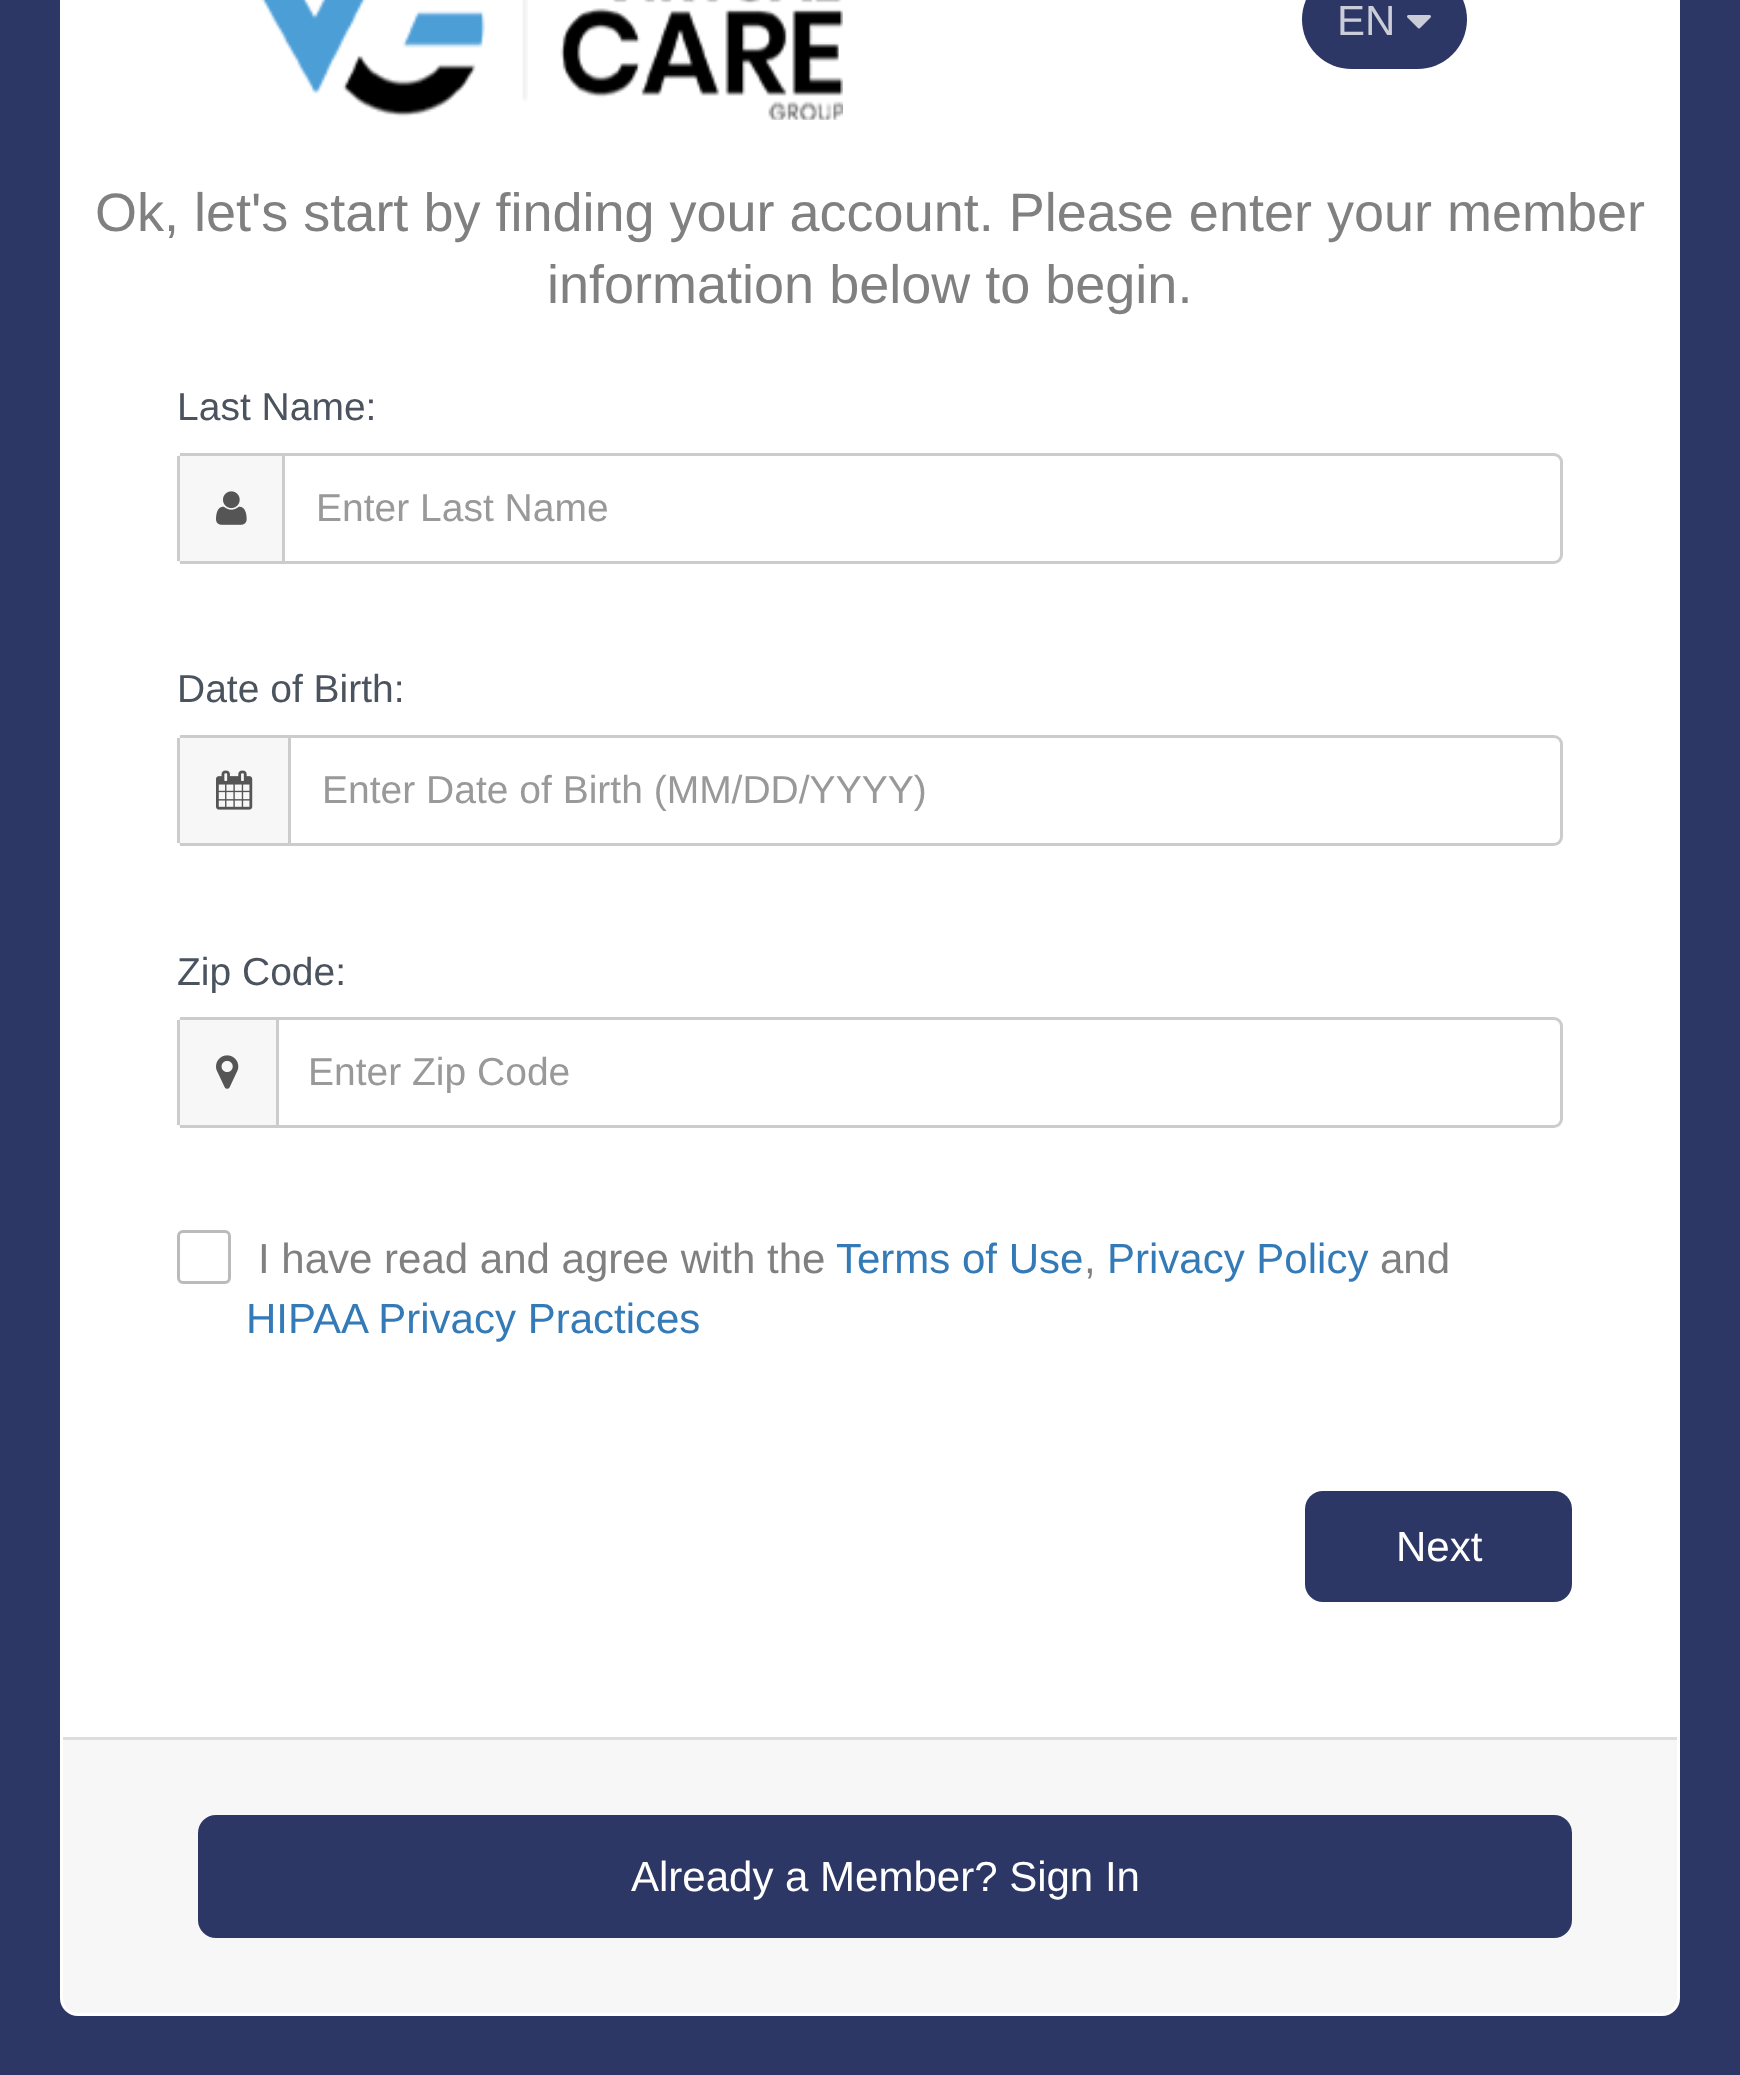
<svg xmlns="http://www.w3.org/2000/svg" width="1740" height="2075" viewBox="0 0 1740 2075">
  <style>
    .t1 { font: 42px Liberation Sans; fill: #cbcdd9; }
    .t2 { font: 54px Liberation Sans; fill: #808080; }
    .t3 { font: 39px Liberation Sans; fill: #4a535e; }
    .t4 { font: 39px Liberation Sans; fill: #999; }
    .t5 { font: 42px Liberation Sans; fill: #808080; }
    .t6 { font: 42px Liberation Sans; fill: #337ab7; }
    .t7 { font: 42px Liberation Sans; fill: #fff; }
  </style>
  <rect width="100%" height="100%" fill="#2d3765"/>
  <rect x="60" y="-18" width="1620" height="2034" rx="18" fill="#fff"/>
  <image x="261" y="0" width="582" height="120" href="images/1.png"/>
  <rect x="1302" y="-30" width="165" height="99" rx="49.5" fill="#2d3765"/>
  <text x="1337" y="35" class="t1">EN</text>
  <image x="1407" y="15" width="24" height="14" href="images/2.png"/>
  <text x="95" y="231" class="t2">Ok, let's start by finding your account. Please enter your member</text>
  <text x="547" y="303" class="t2">information below to begin.</text>
  <text x="177" y="420" class="t3">Last Name:</text>
  <path d="M183 453H282V564H183C179.5 564 177 561.5 177 558V459C177 455.5 179.5 453 183 453Z" fill="#f7f7f7"/>
  <rect x="180" y="453" width="102" height="3" fill="#ccc"/>
  <rect x="180" y="561" width="102" height="3" fill="#ccc"/>
  <rect x="177" y="456" width="3" height="105" fill="#ccc"/>
  <image x="216" y="491" width="31" height="34" href="images/3.png"/>
  <path d="M283.5 454.5H1554C1558 454.5 1561.5 458 1561.5 462V555C1561.5 559 1558 562.5 1554 562.5H283.5Z" fill="none" stroke="#ccc" stroke-width="3"/>
  <text x="316" y="521" class="t4">Enter Last Name</text>
  <text x="177" y="702" class="t3">Date of Birth:</text>
  <path d="M183 735H288V846H183C179.5 846 177 843.5 177 840V741C177 737.5 179.5 735 183 735Z" fill="#f7f7f7"/>
  <rect x="180" y="735" width="108" height="3" fill="#ccc"/>
  <rect x="180" y="843" width="108" height="3" fill="#ccc"/>
  <rect x="177" y="738" width="3" height="105" fill="#ccc"/>
  <image x="216" y="770" width="37" height="40" href="images/4.png"/>
  <path d="M289.5 736.5H1554C1558 736.5 1561.5 740 1561.5 744V837C1561.5 841 1558 844.5 1554 844.5H289.5Z" fill="none" stroke="#ccc" stroke-width="3"/>
  <text x="322" y="803" class="t4">Enter Date of Birth (MM/DD/YYYY)</text>
  <text x="177" y="985" class="t3">Zip Code:</text>
  <path d="M183 1017H276V1128H183C179.5 1128 177 1125.5 177 1122V1023C177 1019.5 179.5 1017 183 1017Z" fill="#f7f7f7"/>
  <rect x="180" y="1017" width="96" height="3" fill="#ccc"/>
  <rect x="180" y="1125" width="96" height="3" fill="#ccc"/>
  <rect x="177" y="1020" width="3" height="105" fill="#ccc"/>
  <image x="216" y="1055" width="23" height="34" href="images/5.png"/>
  <path d="M277.5 1018.5H1554C1558 1018.5 1561.5 1022 1561.5 1026V1119C1561.5 1123 1558 1126.5 1554 1126.5H277.5Z" fill="none" stroke="#ccc" stroke-width="3"/>
  <text x="308" y="1085" class="t4">Enter Zip Code</text>
  <rect x="178.5" y="1231.5" width="51" height="51" rx="4.5" fill="none" stroke="#bbb" stroke-width="3"/>
  <text x="258" y="1273" class="t5">I have read and agree with the</text>
  <text x="836" y="1273" class="t6">Terms of Use</text>
  <text x="1084" y="1273" class="t5">,</text>
  <text x="1107" y="1273" class="t6">Privacy Policy</text>
  <text x="1380" y="1273" class="t5">and</text>
  <text x="246" y="1333" class="t6">HIPAA Privacy Practices</text>
  <rect x="1305" y="1491" width="267" height="111" rx="18" fill="#2d3765"/>
  <text x="1396" y="1561" class="t7">Next</text>
  <path d="M63 1737H1677V1998C1677 2006.5 1670.5 2013 1662 2013H78C69.5 2013 63 2006.5 63 1998Z" fill="#f7f7f7"/>
  <rect x="63" y="1737" width="1614" height="3" fill="#ddd"/>
  <rect x="198" y="1815" width="1374" height="123" rx="18" fill="#2d3765"/>
  <text x="631" y="1891" class="t7">Already a Member? Sign In</text>
</svg>
